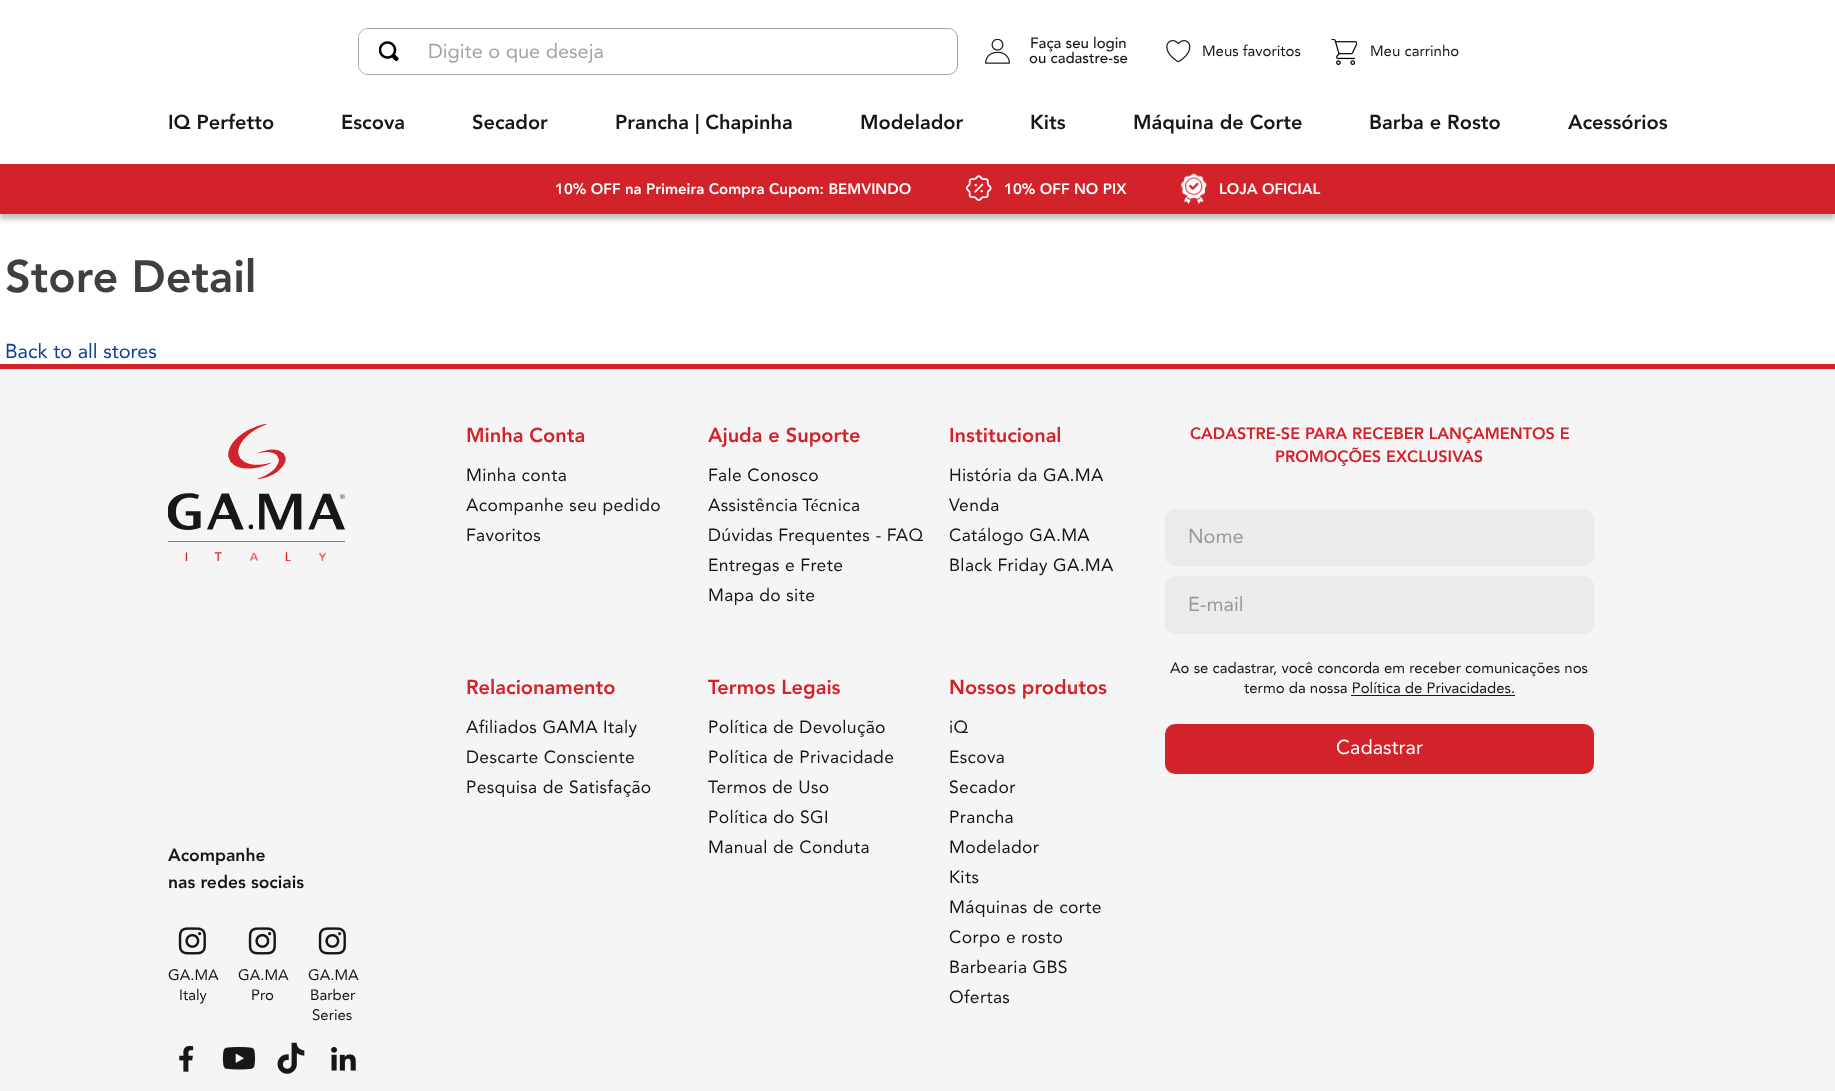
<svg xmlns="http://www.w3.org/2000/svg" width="1835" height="1091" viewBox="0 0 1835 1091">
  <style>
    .t1 { font: 20px Avenir; fill: #a3a3a3; }
    .t2 { font: 500 15px Avenir; fill: #171717; }
    .t3 { font: 15px Avenir; fill: #171717; }
    .t4 { font: 900 20px Avenir; fill: #171717; }
    .t5 { font: 900 15px Avenir; fill: #fff; }
    .t6 { font: 900 45px Avenir; fill: #3f3f40; }
    .t7 { font: 20px Avenir; fill: #0f3e99; }
    .t8 { font: 900 20px Avenir; fill: #d2232a; }
    .t9 { font: 17.5px Avenir; letter-spacing: 0.35px; fill: #171717; }
    .t10 { font: 900 16.25px Avenir; fill: #d2232a; }
    .t11 { font: 20px Avenir; fill: #979899; }
    .t12 { font: 20px Avenir; fill: #fff; }
    .t13 { font: 900 17.5px Avenir; fill: #171717; }
  </style>
  <rect width="100%" height="100%" fill="#fff"/>
  <rect x="358.5" y="28.5" width="599" height="46" rx="9.5" fill="none" stroke="#a3a3a3"/>
  <path d="M368 29H424C427 29 429 31 429 34V69C429 72 427 74 424 74H368C363 74 359 70 359 65V38C359 33 363 29 368 29Z" fill="#fff"/>
  <image x="379" y="41" width="20" height="20" href="images/1.png"/>
  <path d="M430 29H947C952 29 956 33 956 38V65C956 70 952 74 947 74H430C429.5 74 429 73.5 429 73V30C429 29.5 429.5 29 430 29Z" fill="#fff"/>
  <text x="428" y="58" class="t1">Digite o que deseja</text>
  <image x="985" y="39" width="25" height="25" href="images/2.png"/>
  <text x="1030" y="48" class="t2">Faça seu login</text>
  <text x="1029" y="63" class="t2">ou cadastre-se</text>
  <image x="1166" y="40" width="25" height="23" href="images/3.png"/>
  <text x="1202" y="56" class="t3">Meus favoritos</text>
  <image x="1331" y="39" width="26" height="26" href="images/4.png"/>
  <text x="1370" y="56" class="t3">Meu carrinho</text>
  <text x="168" y="129" class="t4">IQ Perfetto</text>
  <text x="341" y="129" class="t4">Escova</text>
  <text x="472" y="129" class="t4">Secador</text>
  <text x="615" y="129" class="t4">Prancha | Chapinha</text>
  <text x="860" y="129" class="t4">Modelador</text>
  <text x="1030" y="129" class="t4">Kits</text>
  <text x="1133" y="129" class="t4">Máquina de Corte</text>
  <text x="1369" y="129" class="t4">Barba e Rosto</text>
  <text x="1568" y="129" class="t4">Acessórios</text>
  <rect x="0" y="169" width="1835" height="50" fill="#00000040" filter="blur(2.5px)"/>
  <rect x="0" y="164" width="1835" height="50" fill="#d2232a"/>
  <text x="555" y="194" class="t5">10% OFF na Primeira Compra Cupom: BEMVINDO</text>
  <image x="965" y="175" width="27" height="26" href="images/5.png"/>
  <text x="1004" y="194" class="t5">10% OFF NO PIX</text>
  <image x="1180" y="173" width="27" height="31" href="images/6.png"/>
  <text x="1219" y="194" class="t5">LOJA OFICIAL</text>
  <text x="5" y="292" class="t6">Store Detail</text>
  <text x="5" y="358" class="t7">Back to all stores</text>
  <rect x="0" y="369" width="1835" height="722" fill="#f5f5f5"/>
  <rect x="0" y="364" width="1835" height="5" fill="#d2232a"/>
  <text x="466" y="442" class="t8">Minha Conta</text>
  <text x="466" y="481" class="t9">Minha conta</text>
  <text x="466" y="511" class="t9">Acompanhe seu pedido</text>
  <text x="466" y="541" class="t9">Favoritos</text>
  <text x="708" y="442" class="t8">Ajuda e Suporte</text>
  <text x="708" y="481" class="t9">Fale Conosco</text>
  <text x="708" y="511" word-spacing="-1" class="t9">Assistência Técnica</text>
  <text x="708" y="541" class="t9">Dúvidas Frequentes - FAQ</text>
  <text x="708" y="571" class="t9">Entregas e Frete</text>
  <text x="708" y="601" class="t9">Mapa do site</text>
  <text x="949" y="442" class="t8">Institucional</text>
  <text x="949" y="481" class="t9">História da GA.MA</text>
  <text x="949" y="511" class="t9">Venda</text>
  <text x="949" y="541" class="t9">Catálogo GA.MA</text>
  <text x="949" y="571" class="t9">Black Friday GA.MA</text>
  <text x="466" y="694" class="t8">Relacionamento</text>
  <text x="466" y="733" class="t9">Afiliados GAMA Italy</text>
  <text x="466" y="763" class="t9">Descarte Consciente</text>
  <text x="466" y="793" class="t9">Pesquisa de Satisfação</text>
  <text x="708" y="694" class="t8">Termos Legais</text>
  <text x="708" y="733" class="t9">Política de Devolução</text>
  <text x="708" y="763" class="t9">Política de Privacidade</text>
  <text x="708" y="793" class="t9">Termos de Uso</text>
  <text x="708" y="823" class="t9">Política do SGI</text>
  <text x="708" y="853" class="t9">Manual de Conduta</text>
  <text x="949" y="694" class="t8">Nossos produtos</text>
  <text x="949" y="733" class="t9">iQ</text>
  <text x="949" y="763" class="t9">Escova</text>
  <text x="949" y="793" class="t9">Secador</text>
  <text x="949" y="823" class="t9">Prancha</text>
  <text x="949" y="853" class="t9">Modelador</text>
  <text x="949" y="883" class="t9">Kits</text>
  <text x="949" y="913" class="t9">Máquinas de corte</text>
  <text x="949" y="943" class="t9">Corpo e rosto</text>
  <text x="949" y="973" class="t9">Barbearia GBS</text>
  <text x="949" y="1003" class="t9">Ofertas</text>
  <text x="1190" y="439" class="t10">CADASTRE-SE PARA RECEBER LANÇAMENTOS E</text>
  <text x="1275" y="462" class="t10">PROMOÇÕES EXCLUSIVAS</text>
  <rect x="1165" y="509" width="429" height="57" rx="10" fill="#ebebeb"/>
  <text x="1188" y="543" class="t11">Nome</text>
  <rect x="1165" y="576" width="429" height="58" rx="10" fill="#ebebeb"/>
  <text x="1188" y="611" class="t11">E-mail</text>
  <text x="1170" y="673" class="t3">Ao se cadastrar, você concorda em receber comunicações nos</text>
  <text x="1244" y="693" class="t3">termo da nossa Política de Privacidades.</text>
  <rect x="1351" y="695" width="164" height="1" fill="#171717"/>
  <rect x="1165" y="724" width="429" height="50" rx="10" fill="#d2232a"/>
  <text x="1336" y="754" class="t12">Cadastrar</text>
  <image x="168" y="424" width="177" height="137" href="images/7.png"/>
  <text x="168" y="861" class="t13">Acompanhe</text>
  <text x="168" y="888" class="t13">nas redes sociais</text>
  <image x="178" y="927" width="28" height="28" href="images/8.png"/>
  <text x="168" y="980" class="t3">GA.MA</text>
  <text x="179" y="1000" class="t3">Italy</text>
  <image x="248" y="927" width="28" height="28" href="images/8.png"/>
  <text x="238" y="980" class="t3">GA.MA</text>
  <text x="251" y="1000" class="t3">Pro</text>
  <image x="318" y="927" width="28" height="28" href="images/8.png"/>
  <text x="308" y="980" class="t3">GA.MA</text>
  <text x="310" y="1000" class="t3">Barber</text>
  <text x="312" y="1020" class="t3">Series</text>
  <image x="179" y="1045" width="15" height="27" href="images/9.png"/>
  <image x="222" y="1047" width="34" height="23" href="images/10.png"/>
  <image x="277" y="1042" width="28" height="32" href="images/11.png"/>
  <image x="331" y="1047" width="25" height="24" href="images/12.png"/>
</svg>
